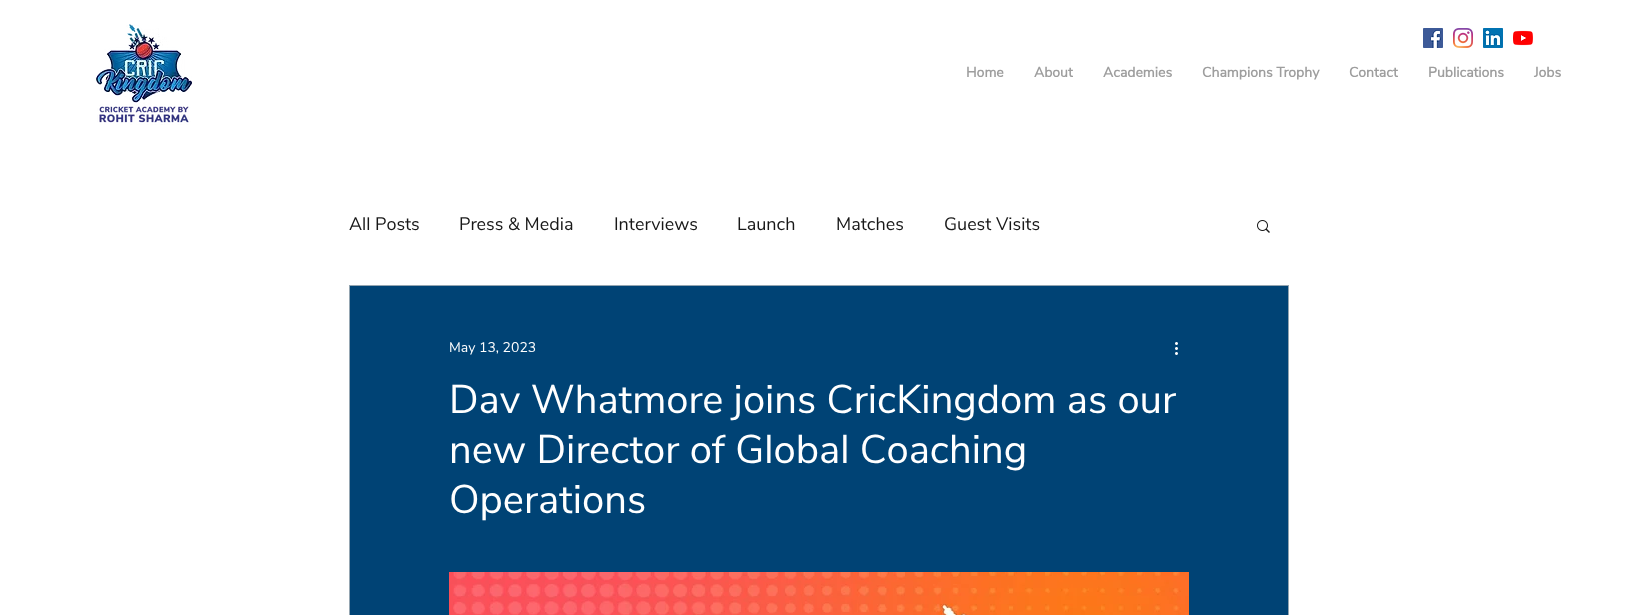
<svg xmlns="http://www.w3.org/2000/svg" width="1637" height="615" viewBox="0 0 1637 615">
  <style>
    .t1 { font: bold 14px Nunito Sans; fill: #9e9e9e; }
    .t2 { font: 18px Nunito Sans; fill: #181818; }
    .t3 { font: 14px Nunito Sans; fill: #fff; }
    .t4 { font: 40px Nunito Sans; fill: #fff; }
  </style>
  <rect width="100%" height="100%" fill="#fff"/>
  <image x="96" y="24" width="96" height="101" href="images/1.png"/>
  <image x="1423" y="28" width="20" height="20" href="images/2.png"/>
  <image x="1453" y="28" width="20" height="20" href="images/3.png"/>
  <image x="1483" y="28" width="20" height="20" href="images/4.png"/>
  <image x="1513" y="30" width="20" height="16" href="images/5.png"/>
  <text x="966" y="77" class="t1">Home</text>
  <text x="1034" y="77" class="t1">About</text>
  <text x="1103" y="77" class="t1">Academies</text>
  <text x="1202" y="77" class="t1">Champions Trophy</text>
  <text x="1349" y="77" class="t1">Contact</text>
  <text x="1428" y="77" class="t1">Publications</text>
  <text x="1534" y="77" class="t1">Jobs</text>
  <text x="349" y="230" class="t2">All Posts</text>
  <text x="459" y="230" class="t2">Press &amp; Media</text>
  <text x="614" y="230" class="t2">Interviews</text>
  <text x="737" y="230" class="t2">Launch</text>
  <text x="836" y="230" class="t2">Matches</text>
  <text x="944" y="230" class="t2">Guest Visits</text>
  <image x="1257" y="220" width="13" height="13" href="images/6.png"/>
  <rect x="349.5" y="285.5" width="939" height="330" fill="#004375" stroke="#94a5b1"/>
  <text x="449" y="352" class="t3">May 13, 2023</text>
  <image x="1175" y="342" width="3" height="13" href="images/7.png"/>
  <text x="449" y="413" class="t4">Dav Whatmore joins CricKingdom as our</text>
  <text x="449" y="463" class="t4">new Director of Global Coaching</text>
  <text x="449" y="513" class="t4">Operations</text>
  <image x="449" y="572" width="740" height="43" href="images/8.png"/>
</svg>
